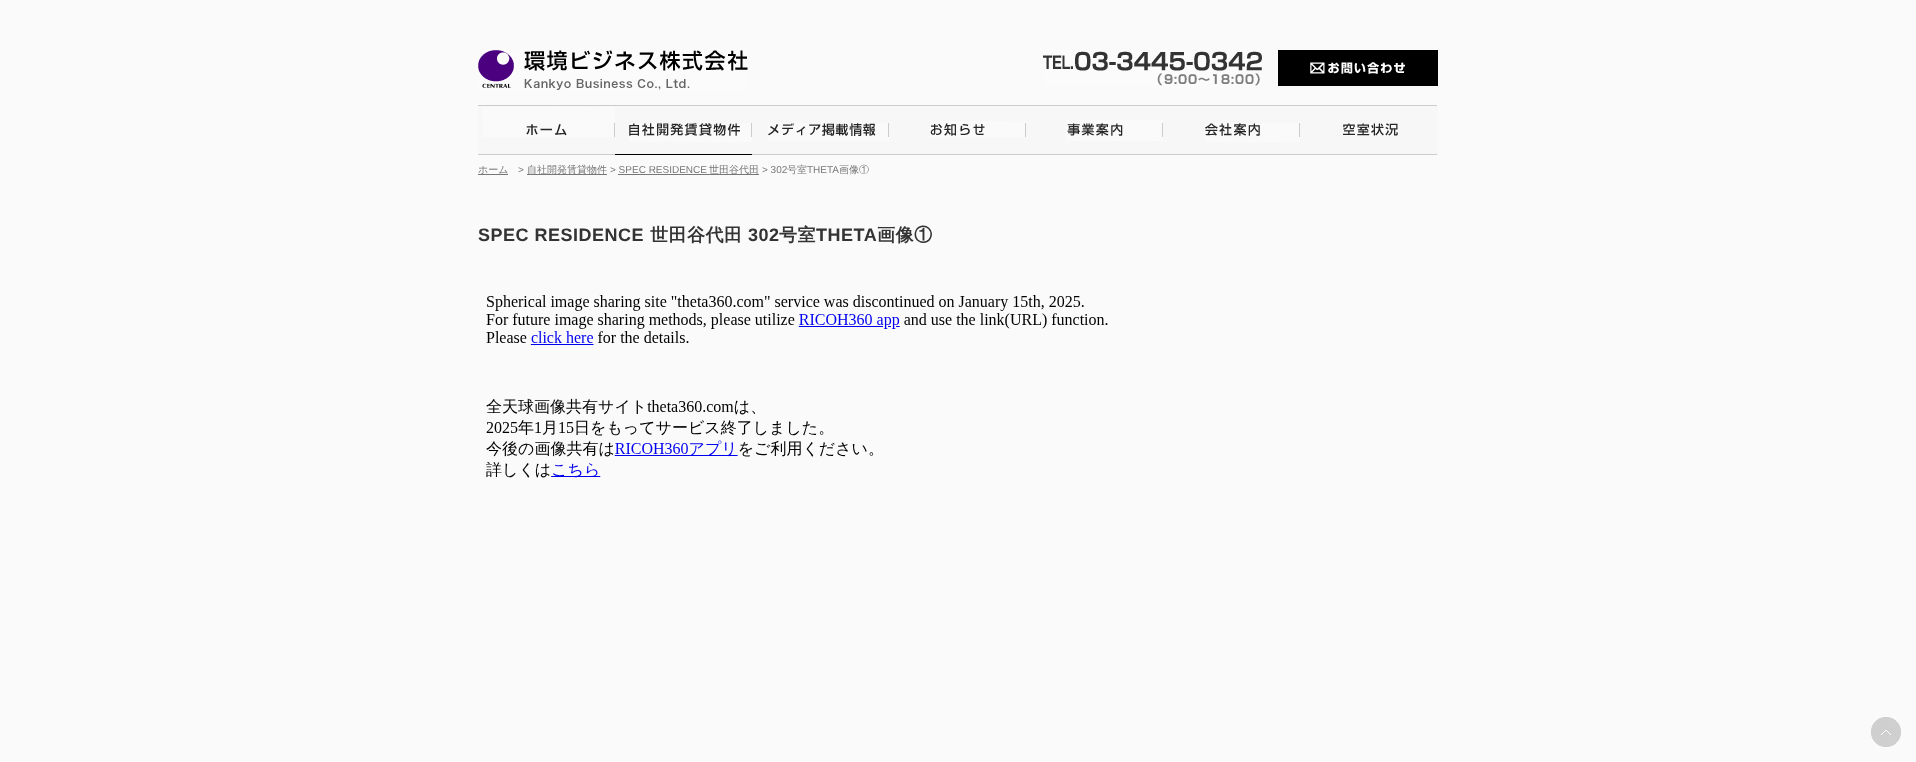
<svg xmlns="http://www.w3.org/2000/svg" width="1916" height="762" viewBox="0 0 1916 762">
  <style>
    .t1 { font: 500 10px WenQuanYi Zen Hei; fill: #777; }
    .t2 { font: 10px Liberation Sans; fill: #777; }
    .t3 { font: bold 18px Liberation Sans; letter-spacing: 0.5px; fill: #333; }
    .t4 { font: bold 18px WenQuanYi Zen Hei; letter-spacing: 0.5px; fill: #333; }
  </style>
  <rect width="100%" height="100%" fill="#fafafa"/>
  <image x="478" y="50" width="270" height="40" href="images/1.png"/>
  <image x="1043" y="51" width="219" height="35" href="images/2.png"/>
  <image x="1278" y="50" width="160" height="36" href="images/3.png"/>
  <rect x="478" y="105" width="960" height="50" fill="#f7f7f7"/>
  <rect x="478" y="105" width="959" height="1" fill="#ccc"/>
  <rect x="478" y="154" width="137" height="1" fill="#ccc"/>
  <image x="482" y="107" width="133" height="30" href="images/4.png"/>
  <image x="629" y="123" width="123" height="19" href="images/5.png"/>
  <rect x="615" y="154" width="137" height="1" fill="#000"/>
  <image x="930" y="121" width="96" height="16" href="images/6.png"/>
  <image x="1066" y="120" width="97" height="21" href="images/7.png"/>
  <rect x="752" y="154" width="685" height="1" fill="#ccc"/>
  <image x="768" y="123" width="121" height="18" href="images/8.png"/>
  <image x="1205" y="123" width="95" height="19" href="images/9.png"/>
  <image x="1343" y="123" width="55" height="13" href="images/10.png"/>
  <text x="478" y="173" class="t1">ホーム</text>
  <rect x="478" y="174" width="30" height="1" fill="#777"/>
  <text x="518" y="173" class="t2">&gt;</text>
  <rect x="527" y="174" width="80" height="1" fill="#777"/>
  <text x="527" y="173" class="t1">自社開発賃貸物件</text>
  <text x="610" y="173" class="t2">&gt; SPEC RESIDENCE</text>
  <rect x="618" y="174" width="141" height="1" fill="#777"/>
  <text x="709" y="173" class="t1">世田谷代田</text>
  <text x="762" y="173" class="t2">&gt; 302</text>
  <text x="787" y="173" class="t1">号室</text>
  <text x="807" y="173" class="t2">THETA</text>
  <text x="839" y="173" class="t1">画像①</text>
  <text x="478" y="241" class="t3">SPEC RESIDENCE</text>
  <text x="650" y="241" class="t4">世田谷代田</text>
  <text x="748" y="241" class="t3">302</text>
  <text x="779" y="241" class="t4">号室</text>
  <text x="816" y="241" class="t3">THETA</text>
  <text x="877" y="241" class="t4">画像①</text>
  <image x="486" y="295" width="622" height="183" href="images/11.png"/>
  <image x="1871" y="717" width="30" height="30" href="images/12.png"/>
</svg>
